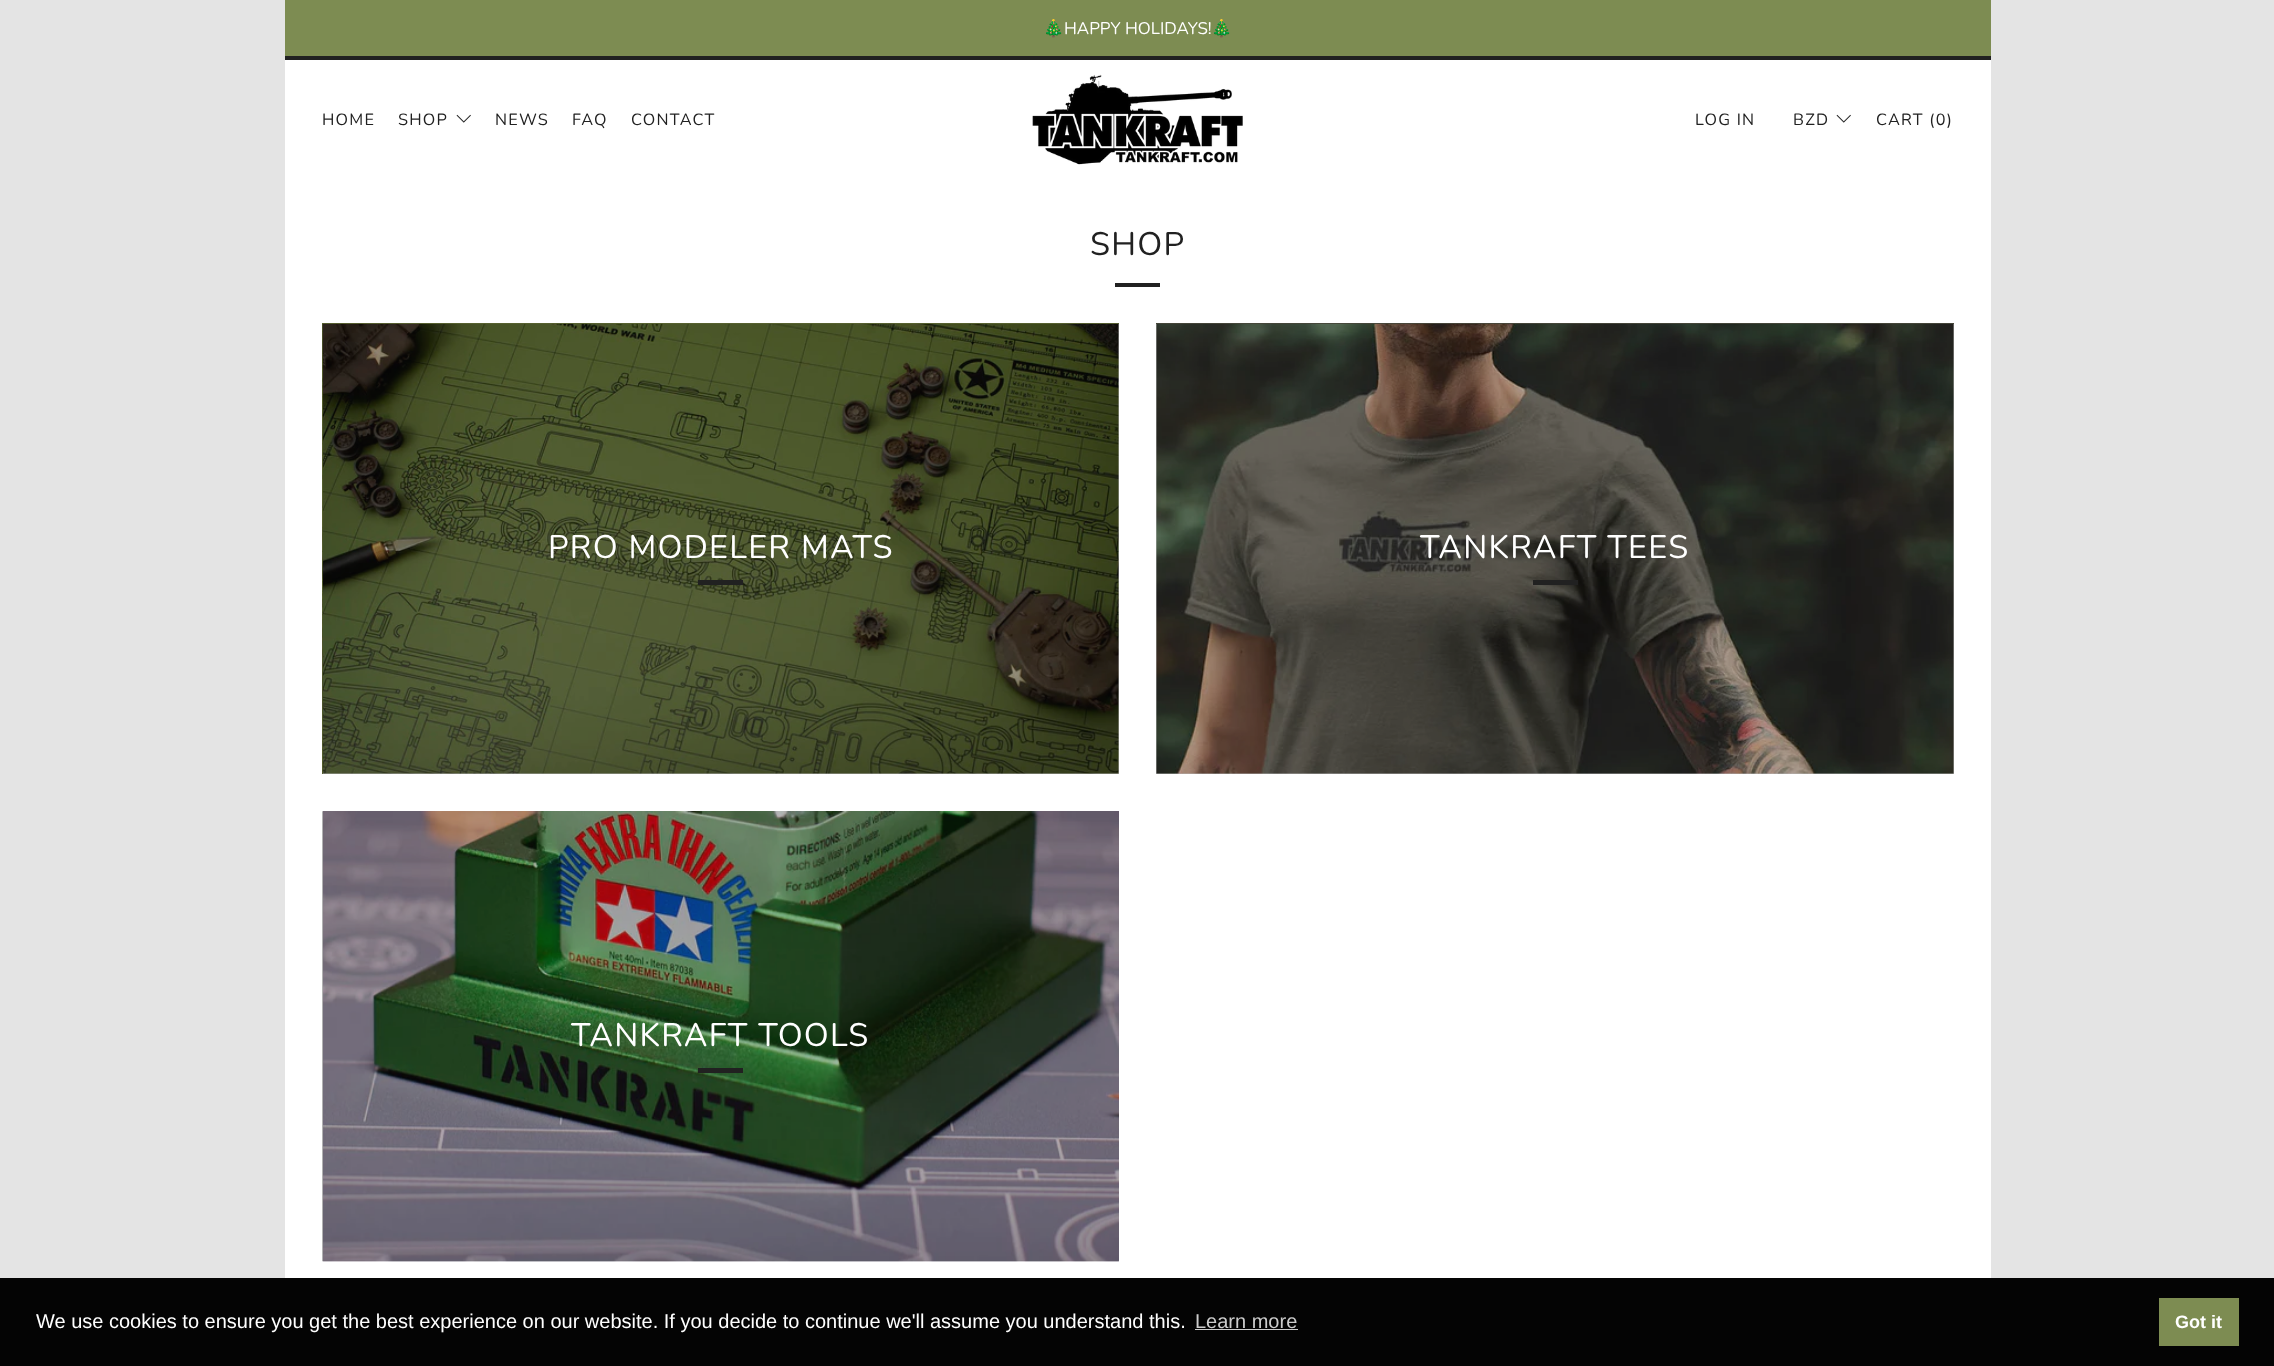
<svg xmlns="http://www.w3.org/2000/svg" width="2274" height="1366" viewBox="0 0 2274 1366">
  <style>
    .t1 { font: 16.9px Noto Color Emoji; fill: #fff; }
    .t2 { font: 16.9px Nunito; fill: #fff; }
    .t3 { font: 16.25px Nunito; letter-spacing: 1.25px; fill: #212121; }
    .t4 { font: 32.5px Nunito; letter-spacing: 1.25px; fill: #212121; }
    .t5 { font: 32.5px Nunito; letter-spacing: 1.25px; fill: #fff; }
    .t6 { font: 20px Liberation Sans; fill: #fff; }
    .t7 { font: 20px Liberation Sans; fill: #cdcdcd; }
    .t8 { font: bold 18px Liberation Sans; fill: #fff; }
  </style>
  <rect width="100%" height="100%" fill="#e4e4e4"/>
  <rect x="285" y="60" width="1706" height="1218" fill="#fff"/>
  <rect x="285" y="0" width="1706" height="56" fill="#7d8c52"/>
  <text x="1043" y="34" class="t1">🎄</text>
  <text x="1064" y="34" class="t2">HAPPY HOLIDAYS!</text>
  <text x="1211" y="34" class="t1">🎄</text>
  <rect x="285" y="56" width="1706" height="4" fill="#212121"/>
  <image x="1032" y="74" width="211" height="91" href="images/1.png"/>
  <text x="322" y="125" class="t3">HOME</text>
  <text x="398" y="125" class="t3">SHOP</text>
  <image x="456" y="114" width="15" height="9" href="images/2.png"/>
  <text x="495" y="125" class="t3">NEWS</text>
  <text x="572" y="125" class="t3">FAQ</text>
  <text x="631" y="125" class="t3">CONTACT</text>
  <text x="1695" y="125" class="t3">LOG IN</text>
  <text x="1793" y="125" class="t3">BZD</text>
  <image x="1836" y="114" width="15" height="9" href="images/2.png"/>
  <text x="1876" y="125" class="t3">CART (0)</text>
  <text x="1090" y="255" class="t4">SHOP</text>
  <rect x="1115" y="283" width="45" height="4" fill="#212121"/>
  <rect x="322" y="323" width="797" height="451" fill="#576130"/>
  <rect x="323" y="324" width="796" height="450" fill="#b8b8b8"/>
  <image x="322" y="323" width="797" height="451" href="images/3.png"/>
  <text x="548" y="558" class="t5">PRO MODELER MATS</text>
  <rect x="698" y="580" width="45" height="5" fill="#212121"/>
  <rect x="1156" y="323" width="798" height="1" fill="#454539"/>
  <rect x="1156" y="324" width="798" height="450" fill="#b8b8b8"/>
  <image x="1156" y="323" width="798" height="451" href="images/4.png"/>
  <text x="1420" y="558" class="t5">TANKRAFT TEES</text>
  <rect x="1533" y="580" width="45" height="5" fill="#212121"/>
  <image x="322" y="811" width="797" height="451" href="images/5.png"/>
  <image x="323" y="811" width="796" height="451" href="images/6.png"/>
  <text x="571" y="1046" class="t5">TANKRAFT TOOLS</text>
  <rect x="698" y="1068" width="45" height="5" fill="#212121"/>
  <rect x="0" y="1278" width="2274" height="88" fill="#040404"/>
  <text x="36" y="1328" class="t6">We use cookies to ensure you get the best experience on our website. If you decide to continue we'll assume you understand this.</text>
  <text x="1195" y="1328" class="t7">Learn more</text>
  <rect x="1195" y="1329" width="103" height="1" fill="#cdcdcd"/>
  <rect x="2159" y="1298" width="80" height="48" fill="#7d8c52"/>
  <text x="2175" y="1328" class="t8">Got it</text>
</svg>
